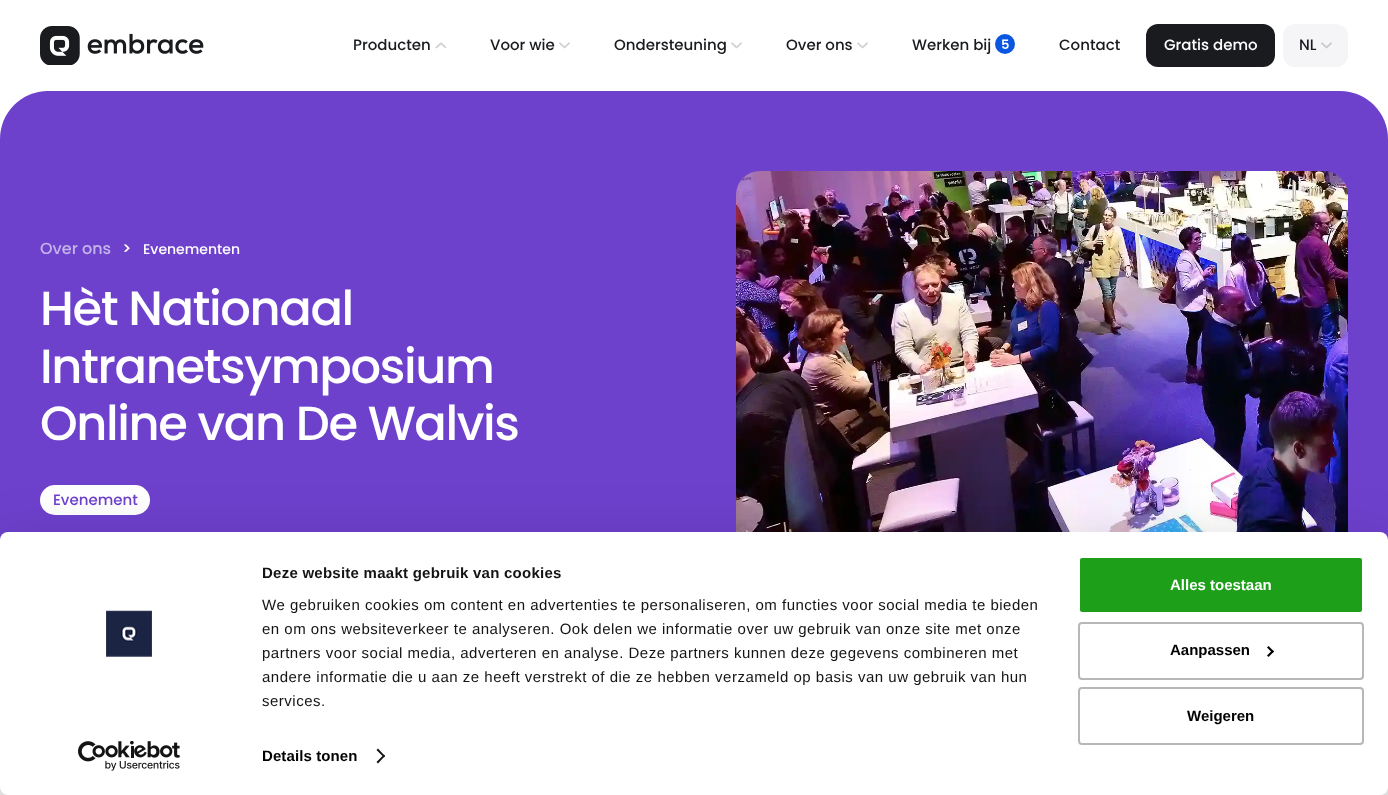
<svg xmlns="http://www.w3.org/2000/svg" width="1388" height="795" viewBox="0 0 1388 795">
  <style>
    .t1 { font: 500 15px Poppins; fill: #191b1f; }
    .t2 { font: 600 13px Poppins; fill: #fff; }
    .t3 { font: 500 15px Poppins; fill: #fff; }
    .t4 { font: 500 16px Poppins; fill: #c5b3eb; }
    .t5 { font: 500 16px Poppins; fill: #fff; }
    .t6 { font: 500 14px Poppins; fill: #fff; }
    .t7 { font: 500 48px Poppins; letter-spacing: -1.4px; fill: #fff; }
    .t8 { font: 500 15px Poppins; fill: #6e41cd; }
    .t9 { font: bold 15px Liberation Sans; letter-spacing: 0.25px; fill: #141414; }
    .t10 { font: 15px Liberation Sans; letter-spacing: 0.5px; fill: #141414; }
    .t11 { font: bold 15px Liberation Sans; letter-spacing: 0.1px; fill: #000; }
    .t12 { font: bold 15px Liberation Sans; fill: #fff; }
    .t13 { font: bold 15px Liberation Sans; fill: #000; }
  </style>
  <rect width="100%" height="100%" fill="#fff"/>
  <image x="40" y="26" width="164" height="39" href="images/1.png"/>
  <text x="353" y="50" class="t1">Producten</text>
  <image x="435" y="42" width="11" height="7" href="images/2.png"/>
  <text x="490" y="50" class="t1">Voor wie</text>
  <image x="559" y="42" width="11" height="7" href="images/3.png"/>
  <text x="614" y="50" class="t1">Ondersteuning</text>
  <image x="731" y="42" width="11" height="7" href="images/3.png"/>
  <text x="786" y="50" class="t1">Over ons</text>
  <image x="857" y="42" width="11" height="7" href="images/3.png"/>
  <text x="912" y="50" class="t1">Werken bij</text>
  <circle cx="1005" cy="44" r="10" fill="#0c57e1"/>
  <text x="1001" y="49" class="t2">5</text>
  <text x="1059" y="50" class="t1">Contact</text>
  <rect x="1146" y="24" width="129" height="43" rx="12" fill="#191b1f"/>
  <text x="1164" y="50" class="t3">Gratis demo</text>
  <rect x="1283" y="24" width="65" height="43" rx="12" fill="#f5f5f7"/>
  <text x="1299" y="50" class="t1">NL</text>
  <image x="1321" y="42" width="11" height="7" href="images/4.png"/>
  <path d="M48 91H1340C1366.5 91 1388 112.5 1388 139V707H0V139C0 112.5 21.5 91 48 91Z" fill="#6e41cd"/>
  <text x="40" y="254" class="t4">Over ons</text>
  <text x="122" y="254" class="t5">&gt;</text>
  <text x="143" y="254" class="t6">Evenementen</text>
  <text x="40" y="325" class="t7">Hèt Nationaal</text>
  <text x="40" y="383" class="t7">Intranetsymposium</text>
  <text x="40" y="440" class="t7">Online van De Walvis</text>
  <rect x="40" y="485" width="110" height="30" rx="15" fill="#fff"/>
  <text x="53" y="505" class="t8">Evenement</text>
  <image x="736" y="171" width="612" height="361" href="images/5.png"/>
  <rect x="0" y="562" width="1388" height="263" rx="8" fill="#0000004d" filter="blur(35px)"/>
  <rect x="0" y="532" width="1388" height="263" rx="8" fill="#fff"/>
  <image x="106" y="610" width="46" height="47" href="images/6.png"/>
  <image x="78" y="741" width="102" height="30" href="images/7.png"/>
  <text x="262" y="578" class="t9">Deze website maakt gebruik van cookies</text>
  <text x="262" y="610" class="t10">We gebruiken cookies om content en advertenties te personaliseren, om functies voor social media te bieden</text>
  <text x="262" y="634" class="t10">en om ons websiteverkeer te analyseren. Ook delen we informatie over uw gebruik van onze site met onze</text>
  <text x="262" y="658" class="t10">partners voor social media, adverteren en analyse. Deze partners kunnen deze gegevens combineren met</text>
  <text x="262" y="682" class="t10">andere informatie die u aan ze heeft verstrekt of die ze hebben verzameld op basis van uw gebruik van hun</text>
  <text x="262" y="706" class="t10">services.</text>
  <text x="262" y="761" class="t11">Details tonen</text>
  <path d="M378 748.5L385 756L384 757.5L376.5 750Z" fill="#141414"/>
  <path d="M384 754.5L385 756L378 763.5L376.5 762Z" fill="#141414"/>
  <rect x="1079" y="557" width="284" height="56" rx="3" fill="#1e9f19" stroke="#fff" stroke-width="2"/>
  <text x="1170" y="590" class="t12">Alles toestaan</text>
  <rect x="1079" y="623" width="284" height="56" rx="3" fill="none" stroke="#b7b7b7" stroke-width="2"/>
  <text x="1170" y="655" class="t13">Aanpassen</text>
  <path d="M1268.5 646L1274 651.5L1272.5 653L1267 647.5Z" fill="#000"/>
  <path d="M1272.5 650L1274 651.5L1268.5 657L1267 655.5Z" fill="#000"/>
  <rect x="1079" y="688" width="284" height="56" rx="3" fill="none" stroke="#b7b7b7" stroke-width="2"/>
  <text x="1187" y="721" class="t13">Weigeren</text>
</svg>
